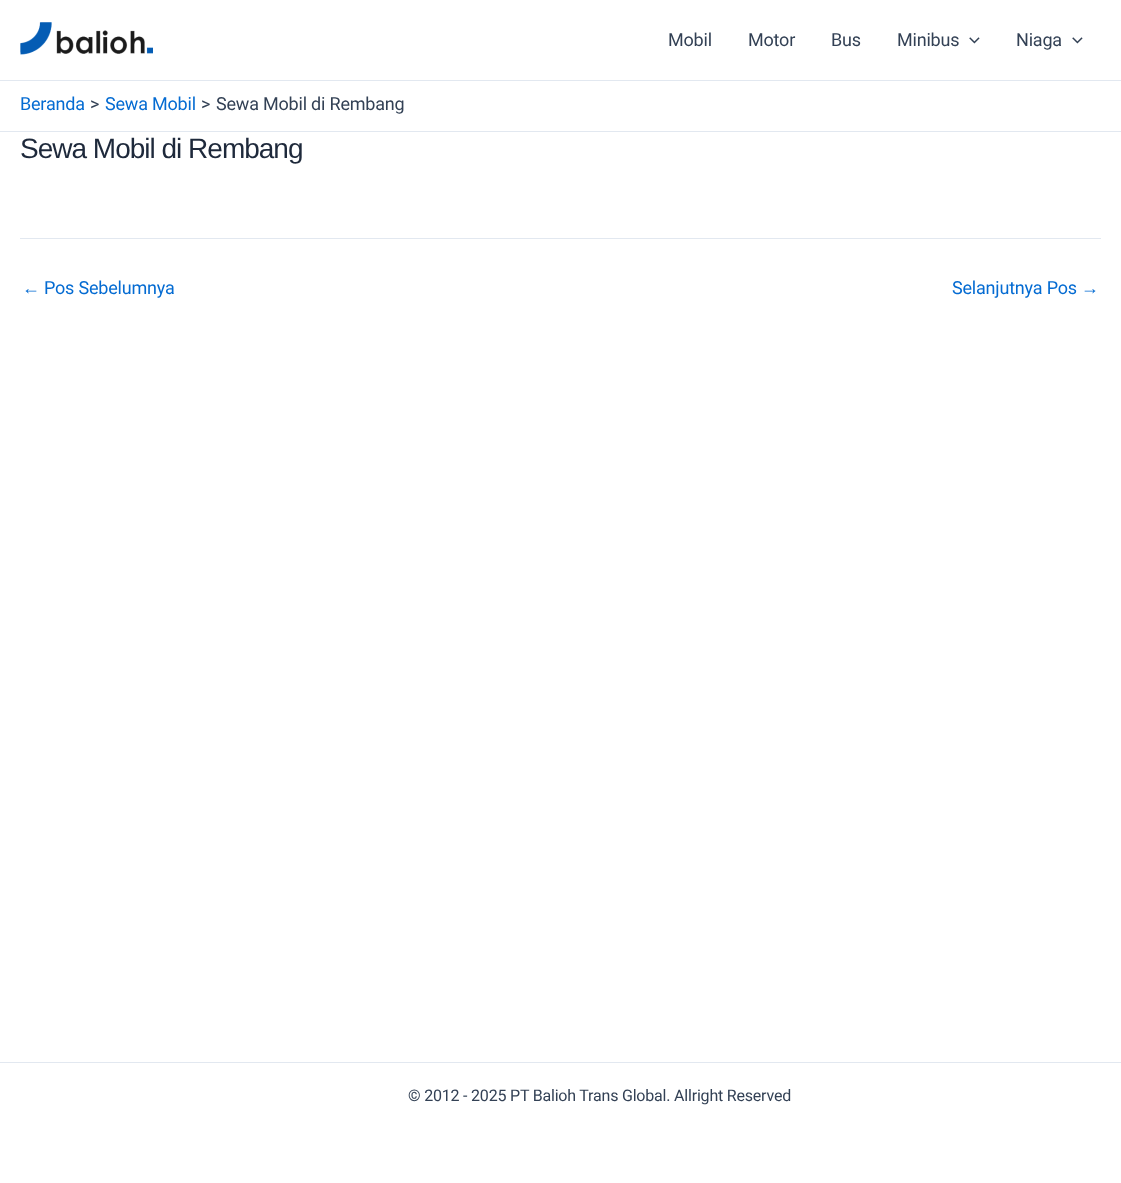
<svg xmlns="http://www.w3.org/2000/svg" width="1121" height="1183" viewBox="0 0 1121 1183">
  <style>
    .t1 { font: 18px Roboto; letter-spacing: -0.2px; fill: #334155; }
    .t2 { font: 18px Roboto; letter-spacing: -0.2px; fill: #046bd2; }
    .t3 { font: 28px Liberation Sans; letter-spacing: -1px; fill: #1e293b; }
    .t4 { font: 18px Liberation Sans; letter-spacing: -0.2px; fill: #046bd2; }
    .t5 { font: 16px Roboto; letter-spacing: -0.2px; fill: #334155; }
  </style>
  <rect width="100%" height="100%" fill="#fff"/>
  <rect x="0" y="80" width="1121" height="1" fill="#e2e8f0"/>
  <image x="20" y="22" width="133" height="33" href="images/1.png"/>
  <text x="668" y="46" class="t1">Mobil</text>
  <text x="748" y="46" class="t1">Motor</text>
  <text x="831" y="46" class="t1">Bus</text>
  <text x="897" y="46" class="t1">Minibus</text>
  <image x="969" y="37" width="11" height="7" href="images/2.png"/>
  <text x="1016" y="46" class="t1">Niaga</text>
  <image x="1072" y="37" width="11" height="7" href="images/2.png"/>
  <rect x="0" y="131" width="1121" height="1" fill="#e2e8f0"/>
  <text x="20" y="110" class="t2">Beranda</text>
  <text x="90" y="110" class="t1">&gt;</text>
  <text x="105" y="110" class="t2">Sewa Mobil</text>
  <text x="201" y="110" class="t1">&gt;</text>
  <text x="216" y="110" class="t1">Sewa Mobil di Rembang</text>
  <text x="20" y="158" class="t3">Sewa Mobil di Rembang</text>
  <rect x="20" y="238" width="1081" height="1" fill="#e2e8f0"/>
  <text x="22" y="294" class="t4">←</text>
  <text x="44" y="294" class="t2">Pos Sebelumnya</text>
  <text x="952" y="294" class="t2">Selanjutnya Pos</text>
  <text x="1081" y="294" class="t4">→</text>
  <rect x="0" y="1062" width="1121" height="1" fill="#e2e8f0"/>
  <text x="408" y="1101" class="t5">© 2012 - 2025 PT Balioh Trans Global. Allright Reserved</text>
</svg>
